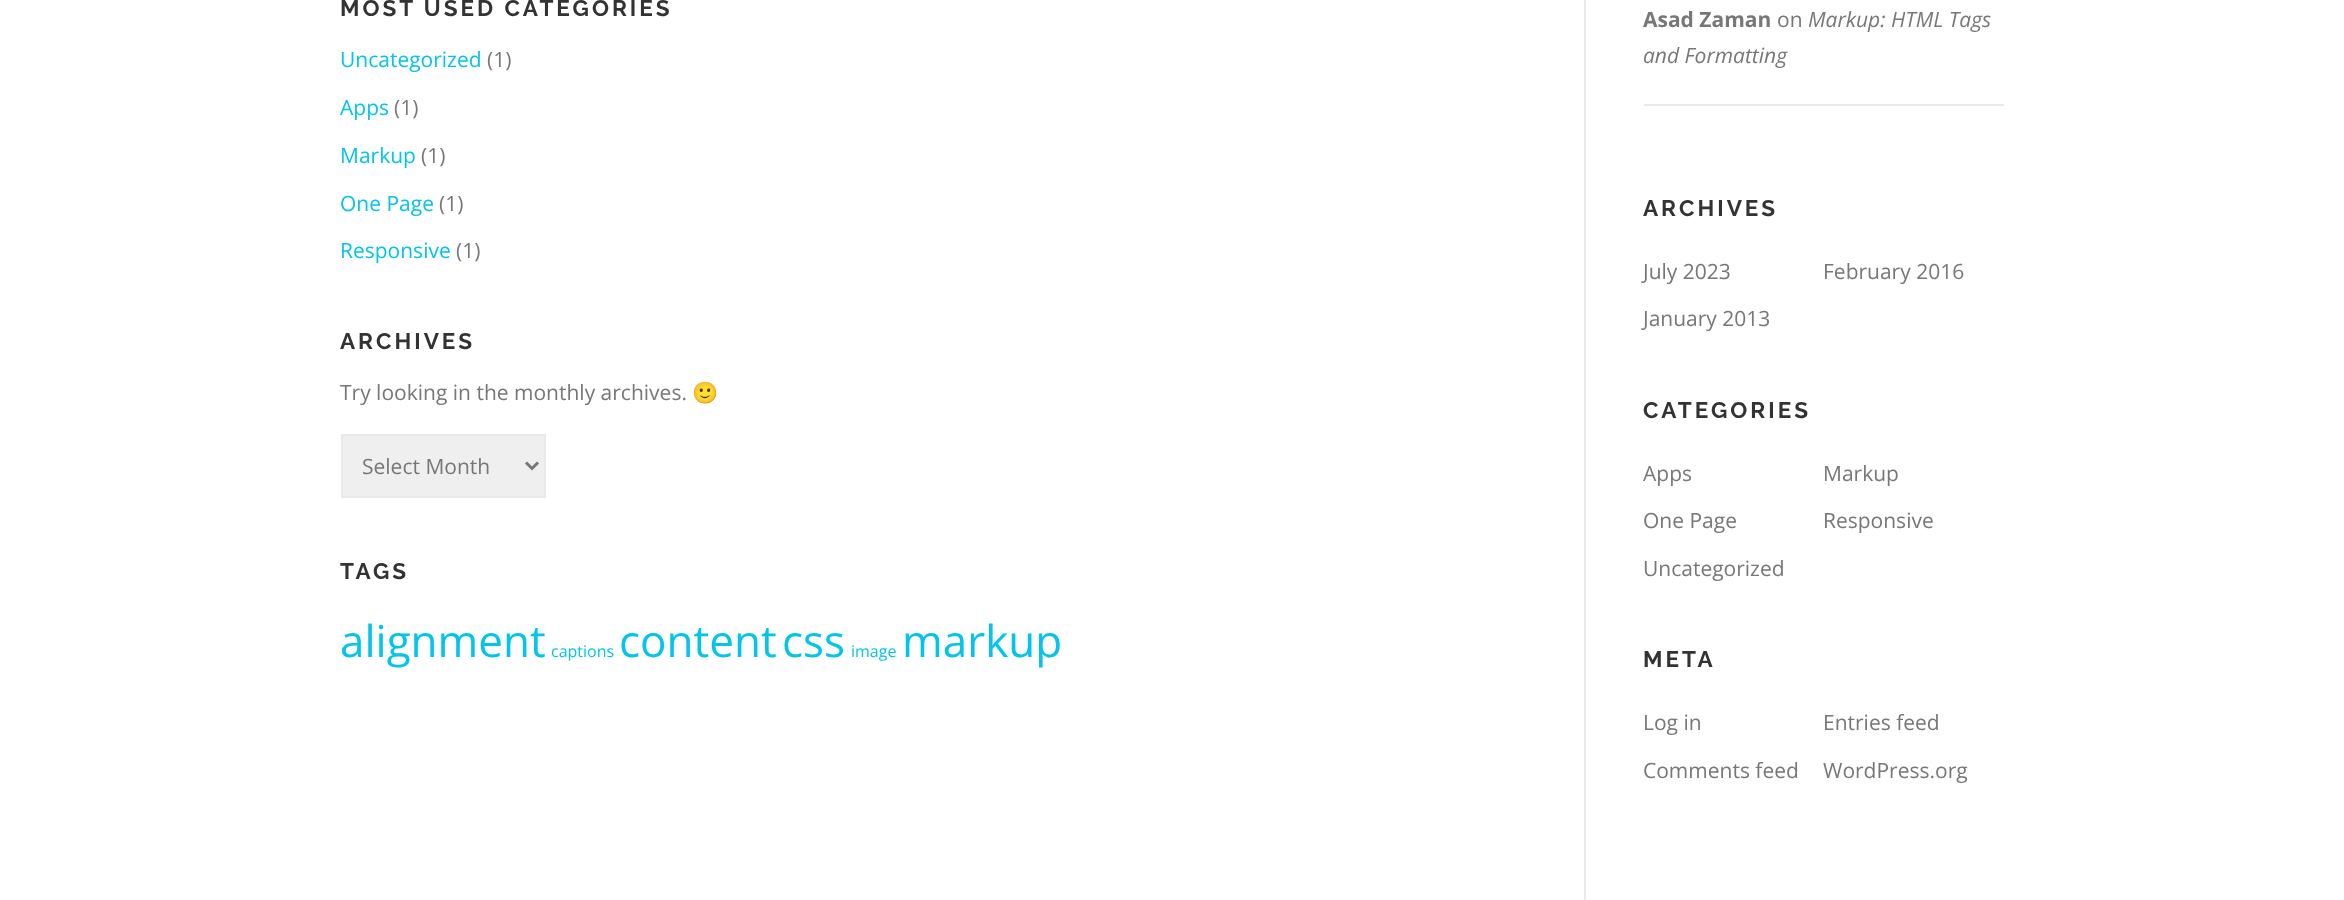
<svg xmlns="http://www.w3.org/2000/svg" width="2344" height="900" viewBox="0 0 2344 900">
  <style>
    .t1 { font: bold 22.5px Raleway; letter-spacing: 3px; fill: #333; }
    .t2 { font: 21px Open Sans; fill: #03c4eb; }
    .t3 { font: 21px Open Sans; fill: #777; }
    .t4 { font: 21px Noto Color Emoji; fill: #777; }
    .t5 { font: 44px Open Sans; fill: #03c4eb; }
    .t6 { font: 16px Open Sans; fill: #03c4eb; }
    .t7 { font: bold 21px Open Sans; fill: #777; }
    .t8 { font: italic 21px Open Sans; fill: #777; }
  </style>
  <rect width="100%" height="100%" fill="#fff"/>
  <text x="340" y="16" class="t1">MOST USED CATEGORIES</text>
  <text x="340" y="67" class="t2">Uncategorized</text>
  <text x="487" y="67" class="t3">(1)</text>
  <text x="340" y="115" class="t2">Apps</text>
  <text x="394" y="115" class="t3">(1)</text>
  <text x="340" y="163" class="t2">Markup</text>
  <text x="421" y="163" class="t3">(1)</text>
  <text x="340" y="211" class="t2">One Page</text>
  <text x="439" y="211" class="t3">(1)</text>
  <text x="340" y="258" class="t2">Responsive</text>
  <text x="456" y="258" class="t3">(1)</text>
  <text x="340" y="349" class="t1">ARCHIVES</text>
  <text x="340" y="400" class="t3">Try looking in the monthly archives.</text>
  <text x="692" y="400" class="t4">🙂</text>
  <rect x="342" y="435" width="203" height="62" fill="#efefef" stroke="#e9e9e9" stroke-width="2"/>
  <path d="M526 462.5L532 468.5L538 462.5" fill="none" stroke="#777" stroke-width="3"/>
  <text x="362" y="474" class="t3">Select Month</text>
  <text x="340" y="579" class="t1">TAGS</text>
  <text x="340" y="657" class="t5">alignment</text>
  <text x="551" y="657" class="t6">captions</text>
  <text x="619" y="657" class="t5">content</text>
  <text x="782" y="657" class="t5">css</text>
  <text x="851" y="657" class="t6">image</text>
  <text x="902" y="657" class="t5">markup</text>
  <rect x="1584" y="0" width="2" height="900" fill="#e9e9e9"/>
  <rect x="1644" y="104" width="360" height="2" fill="#e9e9e9"/>
  <text x="1643" y="27" class="t7">Asad Zaman</text>
  <text x="1777" y="27" class="t3">on</text>
  <text x="1808" y="27" class="t8">Markup: HTML Tags</text>
  <text x="1643" y="63" class="t8">and Formatting</text>
  <text x="1643" y="216" class="t1">ARCHIVES</text>
  <text x="1643" y="279" class="t3">July 2023</text>
  <text x="1823" y="279" class="t3">February 2016</text>
  <text x="1643" y="326" class="t3">January 2013</text>
  <text x="1643" y="418" class="t1">CATEGORIES</text>
  <text x="1643" y="481" class="t3">Apps</text>
  <text x="1823" y="481" class="t3">Markup</text>
  <text x="1643" y="528" class="t3">One Page</text>
  <text x="1823" y="528" class="t3">Responsive</text>
  <text x="1643" y="576" class="t3">Uncategorized</text>
  <text x="1643" y="667" class="t1">META</text>
  <text x="1643" y="730" class="t3">Log in</text>
  <text x="1823" y="730" class="t3">Entries feed</text>
  <text x="1643" y="778" class="t3">Comments feed</text>
  <text x="1823" y="778" class="t3">WordPress.org</text>
</svg>
